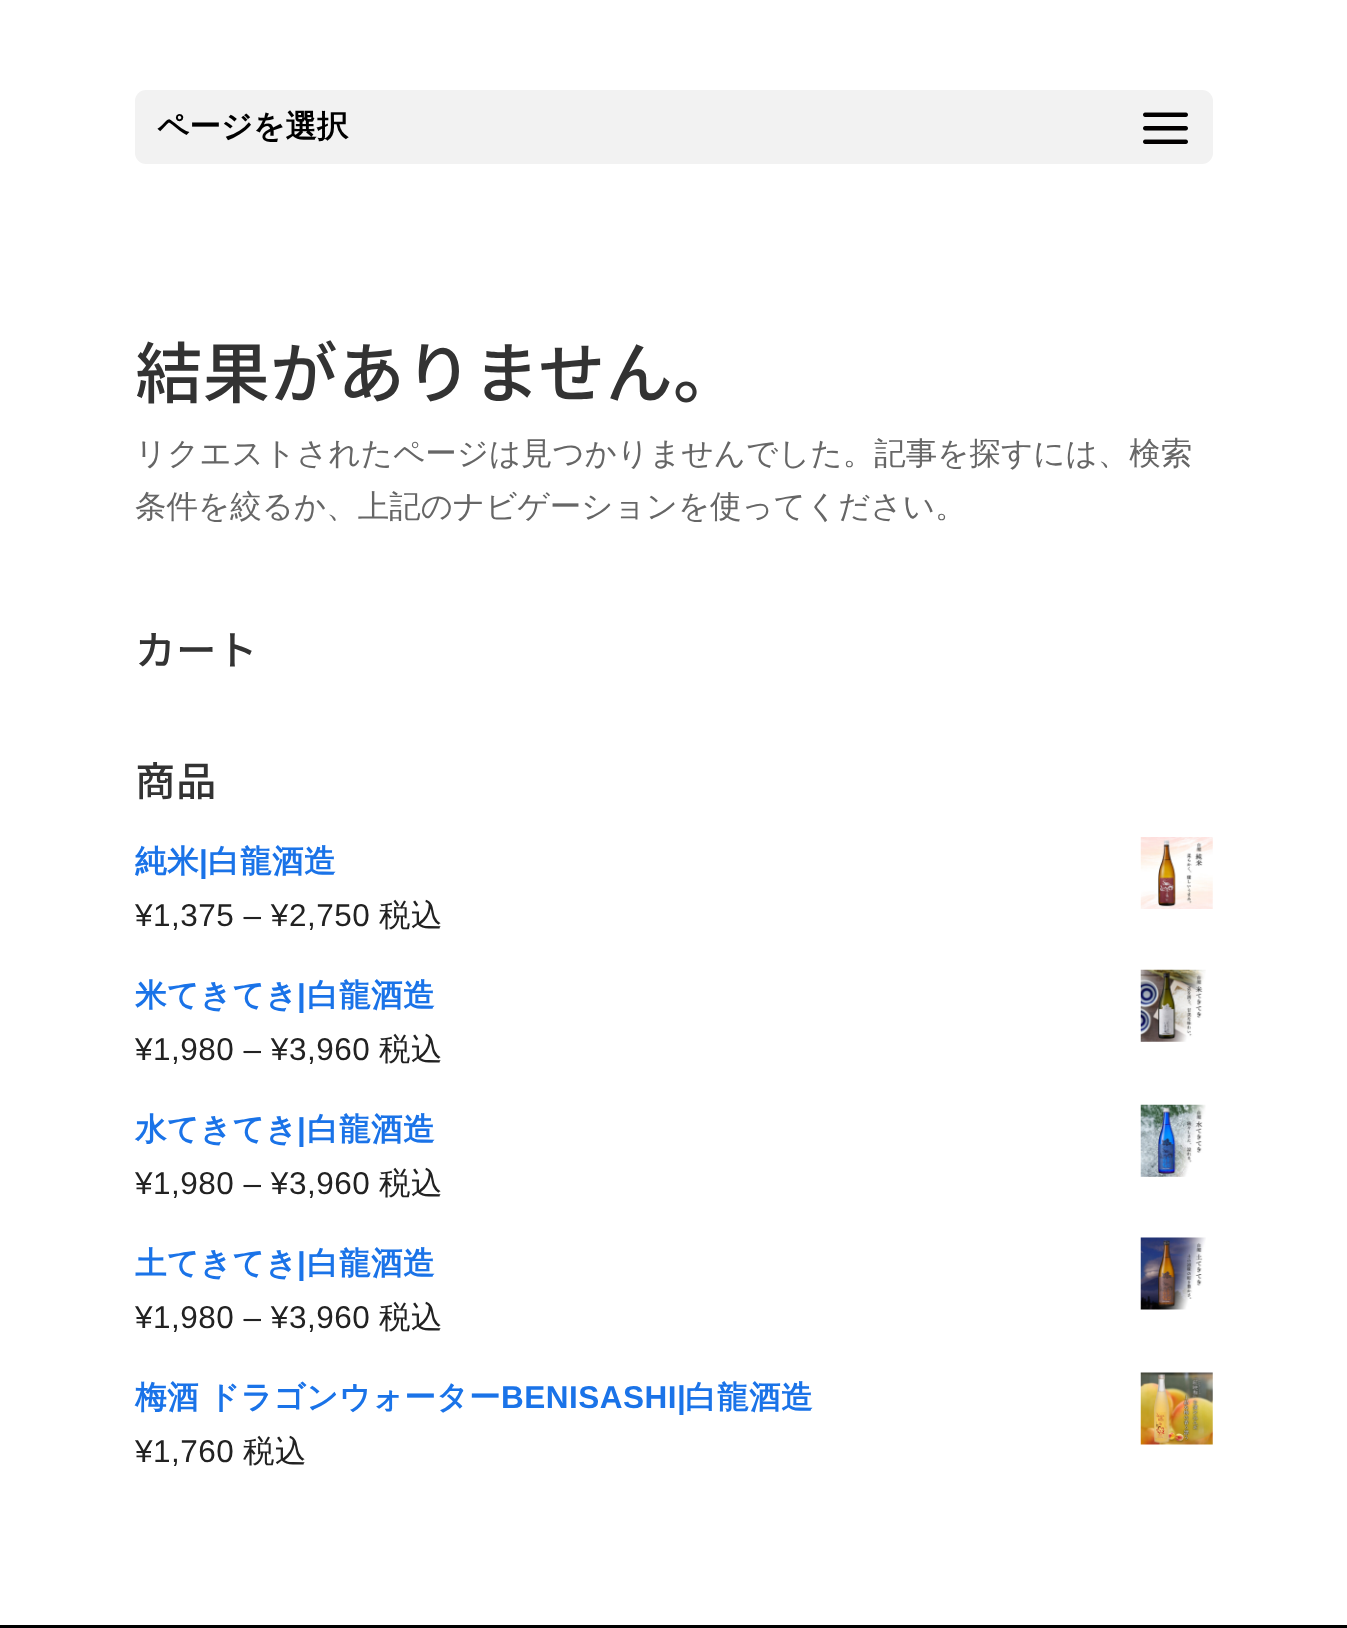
<svg xmlns="http://www.w3.org/2000/svg" width="1347" height="1628" viewBox="0 0 1347 1628">
  <style>
    .t1 { font: bold 31.5px WenQuanYi Zen Hei; fill: #000; }
    .t2 { font: 500 67.5px Noto Sans JP; fill: #333; }
    .t3 { font: 500 31.5px WenQuanYi Zen Hei; fill: #666; }
    .t4 { font: 500 40.5px Noto Sans JP; letter-spacing: 0.5px; fill: #333; }
    .t5 { font: bold 31.5px WenQuanYi Zen Hei; letter-spacing: 0.5px; fill: #1a73e8; }
    .t6 { font: bold 31.5px Liberation Sans; letter-spacing: 0.5px; fill: #1a73e8; }
    .t7 { font: 31.5px Liberation Sans; letter-spacing: 0.5px; fill: #222; }
    .t8 { font: 500 31.5px WenQuanYi Zen Hei; letter-spacing: 0.5px; fill: #222; }
  </style>
  <rect width="100%" height="100%" fill="#fff"/>
  <rect x="135" y="90" width="1078" height="74" rx="11" fill="#f2f2f2"/>
  <text x="157" y="137" class="t1">ページを選択</text>
  <image x="1143" y="112" width="45" height="32" href="images/1.png"/>
  <text x="135" y="398" class="t2">結果がありません。</text>
  <text x="135" y="464" class="t3">リクエストされたページは見つかりませんでした。記事を探すには、検索</text>
  <text x="135" y="517" class="t3">条件を絞るか、上記のナビゲーションを使ってください。</text>
  <text x="135" y="665" class="t4">カート</text>
  <text x="135" y="796" class="t4">商品</text>
  <text x="135" y="872" class="t5">純米</text>
  <text x="199" y="872" class="t6">|</text>
  <text x="208" y="872" class="t5">白龍酒造</text>
  <image x="1140" y="837" width="73" height="72" href="images/2.png"/>
  <text x="135" y="926" class="t7">¥1,375 – ¥2,750</text>
  <text x="379" y="926" class="t8">税込</text>
  <text x="135" y="1006" class="t5">米てきてき</text>
  <text x="297" y="1006" class="t6">|</text>
  <text x="307" y="1006" class="t5">白龍酒造</text>
  <image x="1140" y="969" width="66" height="73" href="images/3.png"/>
  <text x="135" y="1060" class="t7">¥1,980 – ¥3,960</text>
  <text x="379" y="1060" class="t8">税込</text>
  <text x="135" y="1140" class="t5">水てきてき</text>
  <text x="297" y="1140" class="t6">|</text>
  <text x="307" y="1140" class="t5">白龍酒造</text>
  <image x="1140" y="1104" width="66" height="73" href="images/4.png"/>
  <text x="135" y="1194" class="t7">¥1,980 – ¥3,960</text>
  <text x="379" y="1194" class="t8">税込</text>
  <text x="135" y="1274" class="t5">土てきてき</text>
  <text x="297" y="1274" class="t6">|</text>
  <text x="307" y="1274" class="t5">白龍酒造</text>
  <image x="1140" y="1237" width="66" height="73" href="images/5.png"/>
  <text x="135" y="1328" class="t7">¥1,980 – ¥3,960</text>
  <text x="379" y="1328" class="t8">税込</text>
  <text x="135" y="1408" word-spacing="-1" class="t5">梅酒 ドラゴンウォーター</text>
  <text x="501" y="1408" class="t6">BENISASHI|</text>
  <text x="685" y="1408" class="t5">白龍酒造</text>
  <image x="1140" y="1372" width="73" height="73" href="images/6.png"/>
  <text x="135" y="1462" class="t7">¥1,760</text>
  <text x="243" y="1462" class="t8">税込</text>
  <rect x="0" y="1625" width="1347" height="3" fill="#000"/>
</svg>
